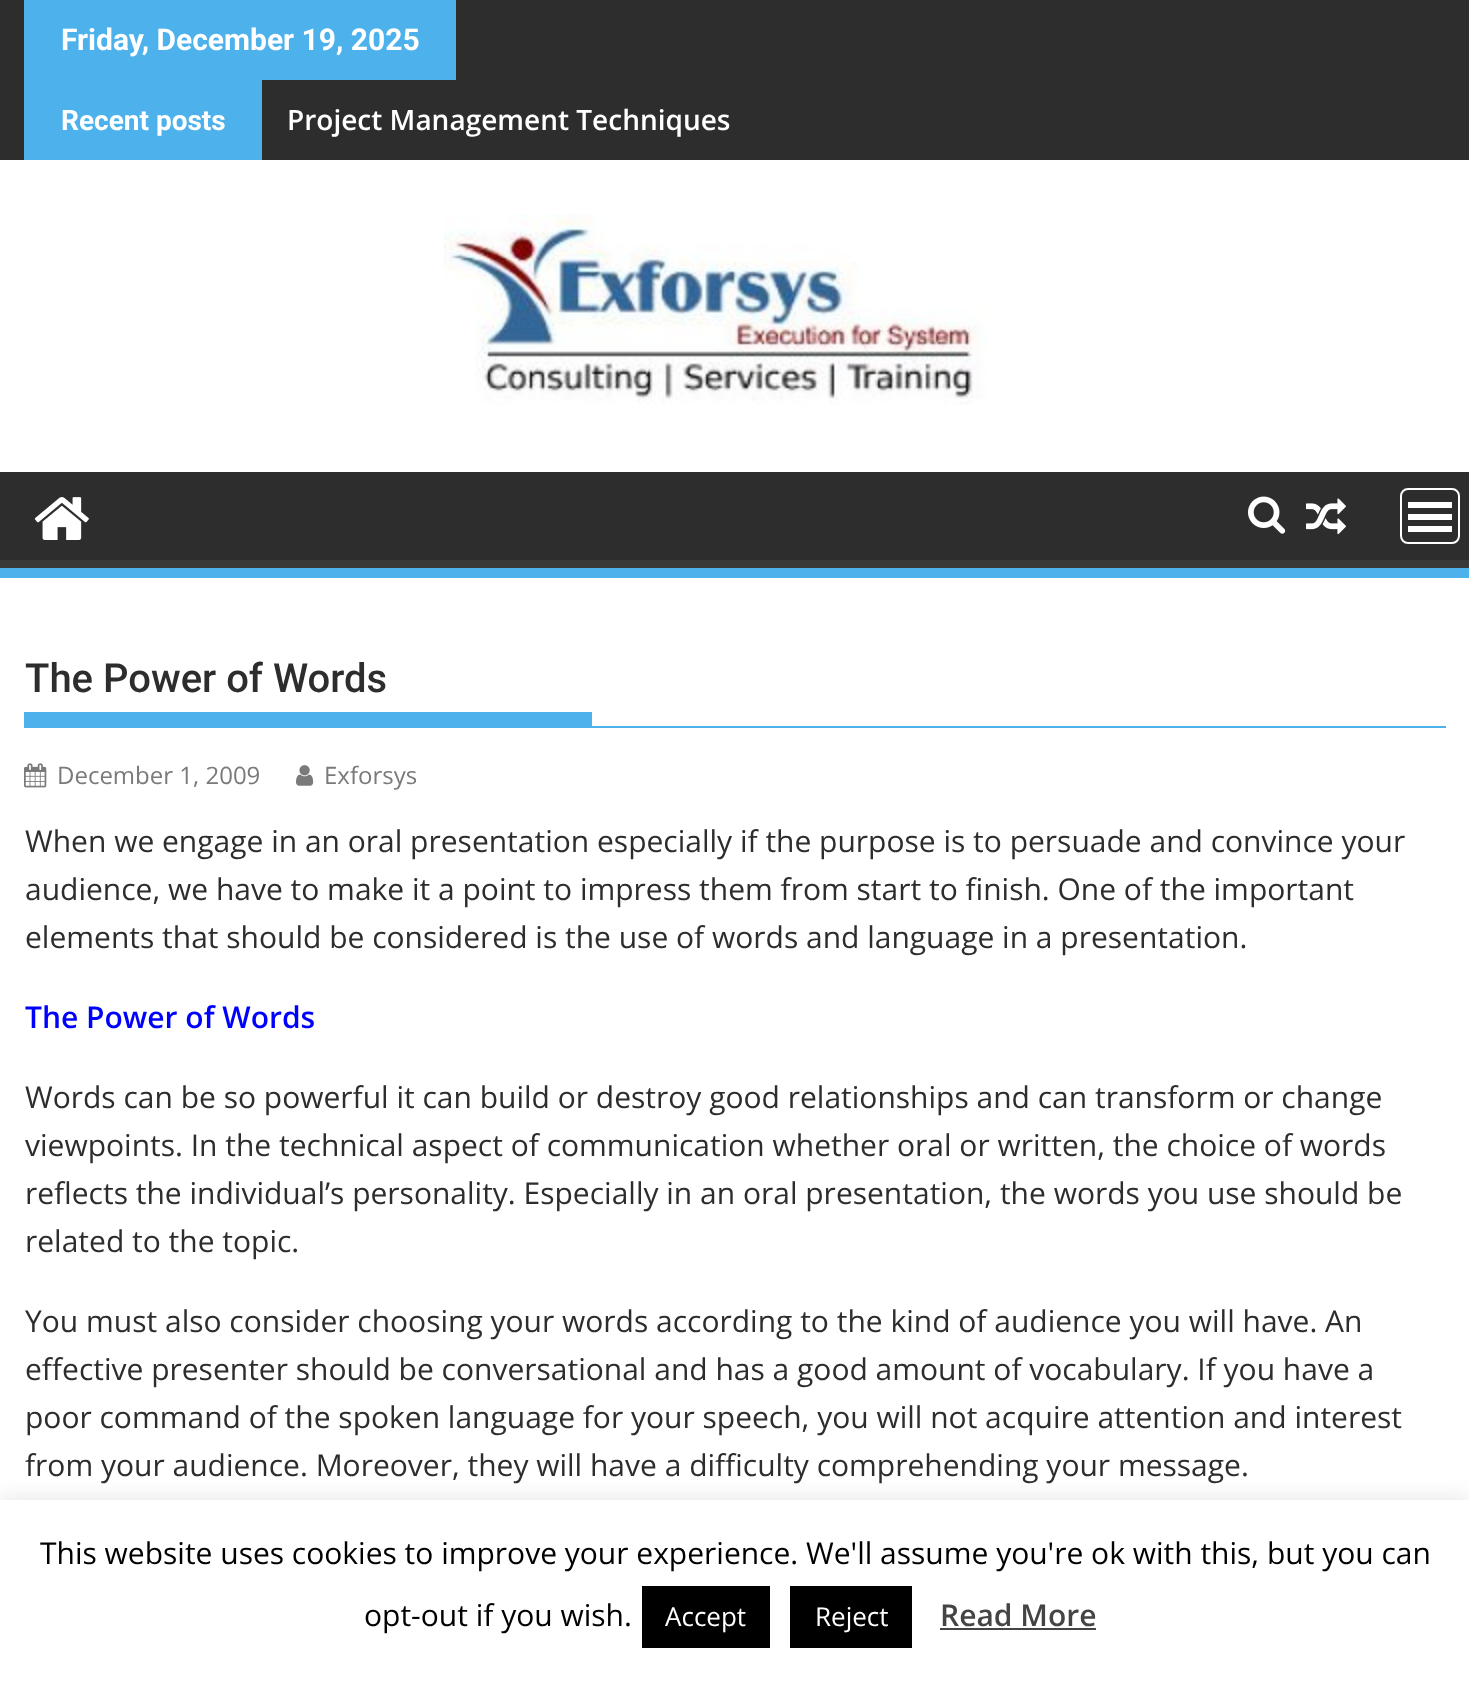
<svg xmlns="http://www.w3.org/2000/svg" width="1469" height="1681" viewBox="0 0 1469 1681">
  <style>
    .t1 { font: bold 30px Roboto; fill: #fff; }
    .t2 { font: bold 28px Roboto; fill: #fff; }
    .t3 { font: 600 28px Open Sans; fill: #fff; }
    .t4 { font: 500 40px Roboto; fill: #2d2d2d; }
    .t5 { font: 24px Open Sans; fill: #7a7a7a; }
    .t6 { font: 30px Open Sans; fill: #2d2d2d; }
    .t7 { font: 600 30px Open Sans; fill: #00f; }
    .t8 { font: 30px Open Sans; fill: #000; }
    .t9 { font: 26px Open Sans; fill: #fff; }
    .t10 { font: 600 30px Open Sans; fill: #444; }
  </style>
  <defs>
    <clipPath id="clip1"><rect x="0" y="472" width="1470" height="96"/></clipPath>
  </defs>
  <rect width="100%" height="100%" fill="#fff"/>
  <rect x="0" y="0" width="1469" height="160" fill="#2d2d2d"/>
  <rect x="24" y="0" width="432" height="80" fill="#4db2ec"/>
  <text x="61" y="50" class="t1">Friday, December 19, 2025</text>
  <rect x="24" y="80" width="238" height="80" fill="#4db2ec"/>
  <text x="61" y="130" class="t2">Recent posts</text>
  <text x="287" y="130" class="t3">Project Management Techniques</text>
  <image x="444" y="214" width="543" height="191" href="images/1.png"/>
  <rect x="0" y="472" width="1469" height="88" fill="#2d2d2d"/>
  <g clip-path="url(#clip1)">
    <path d="M-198 274H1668V766H-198ZM-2 460H1468C1469 460 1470 461 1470 462V558C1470 559 1469 560 1468 560H-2C-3 560-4 559-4 558V462C-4 461-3 460-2 460Z" fill="#393939" fill-rule="evenodd"/>
  </g>
  <rect x="0" y="568" width="1469" height="10" fill="#4db2ec"/>
  <image x="34" y="497" width="55" height="43" href="images/2.png"/>
  <image x="1248" y="496" width="38" height="38" href="images/3.png"/>
  <image x="1306" y="498" width="40" height="37" href="images/4.png"/>
  <rect x="1401" y="489" width="58" height="54" rx="7" fill="none" stroke="#fff" stroke-width="2"/>
  <rect x="1408" y="526" width="44" height="6" fill="#fff"/>
  <rect x="1408" y="514" width="44" height="6" fill="#fff"/>
  <rect x="1408" y="502" width="44" height="6" fill="#fff"/>
  <rect x="24" y="726" width="1422" height="2" fill="#4db2ec"/>
  <text x="25" y="692" class="t4">The Power of Words</text>
  <rect x="24" y="712" width="568" height="14" fill="#4db2ec"/>
  <image x="24" y="763" width="23" height="25" href="images/5.png"/>
  <text x="57" y="784" class="t5">December 1, 2009</text>
  <image x="296" y="765" width="18" height="21" href="images/6.png"/>
  <text x="324" y="784" class="t5">Exforsys</text>
  <text x="25" y="852" class="t6">When we engage in an oral presentation especially if the purpose is to persuade and convince your</text>
  <text x="25" y="900" class="t6">audience, we have to make it a point to impress them from start to finish. One of the important</text>
  <text x="25" y="948" class="t6">elements that should be considered is the use of words and language in a presentation.</text>
  <text x="25" y="1028" class="t7">The Power of Words</text>
  <text x="25" y="1108" class="t6">Words can be so powerful it can build or destroy good relationships and can transform or change</text>
  <text x="25" y="1156" class="t6">viewpoints. In the technical aspect of communication whether oral or written, the choice of words</text>
  <text x="25" y="1204" class="t6">reflects the individual’s personality. Especially in an oral presentation, the words you use should be</text>
  <text x="25" y="1252" class="t6">related to the topic.</text>
  <text x="25" y="1332" class="t6">You must also consider choosing your words according to the kind of audience you will have. An</text>
  <text x="25" y="1380" class="t6">effective presenter should be conversational and has a good amount of vocabulary. If you have a</text>
  <text x="25" y="1428" class="t6">poor command of the spoken language for your speech, you will not acquire attention and interest</text>
  <text x="25" y="1476" class="t6">from your audience. Moreover, they will have a difficulty comprehending your message.</text>
  <rect x="0" y="1498" width="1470" height="182" fill="#acabab4d" filter="blur(10px)"/>
  <rect x="0" y="1500" width="1469" height="181" fill="#fff"/>
  <text x="40" y="1564" class="t8">This website uses cookies to improve your experience. We'll assume you're ok with this, but you can</text>
  <text x="364" y="1626" class="t8">opt-out if you wish.</text>
  <rect x="642" y="1586" width="128" height="62" fill="#000"/>
  <text x="665" y="1626" class="t9">Accept</text>
  <rect x="790" y="1586" width="122" height="62" fill="#000"/>
  <text x="815" y="1626" class="t9">Reject</text>
  <text x="940" y="1626" class="t10">Read More</text>
  <rect x="940" y="1628" width="156" height="2" fill="#444"/>
</svg>
